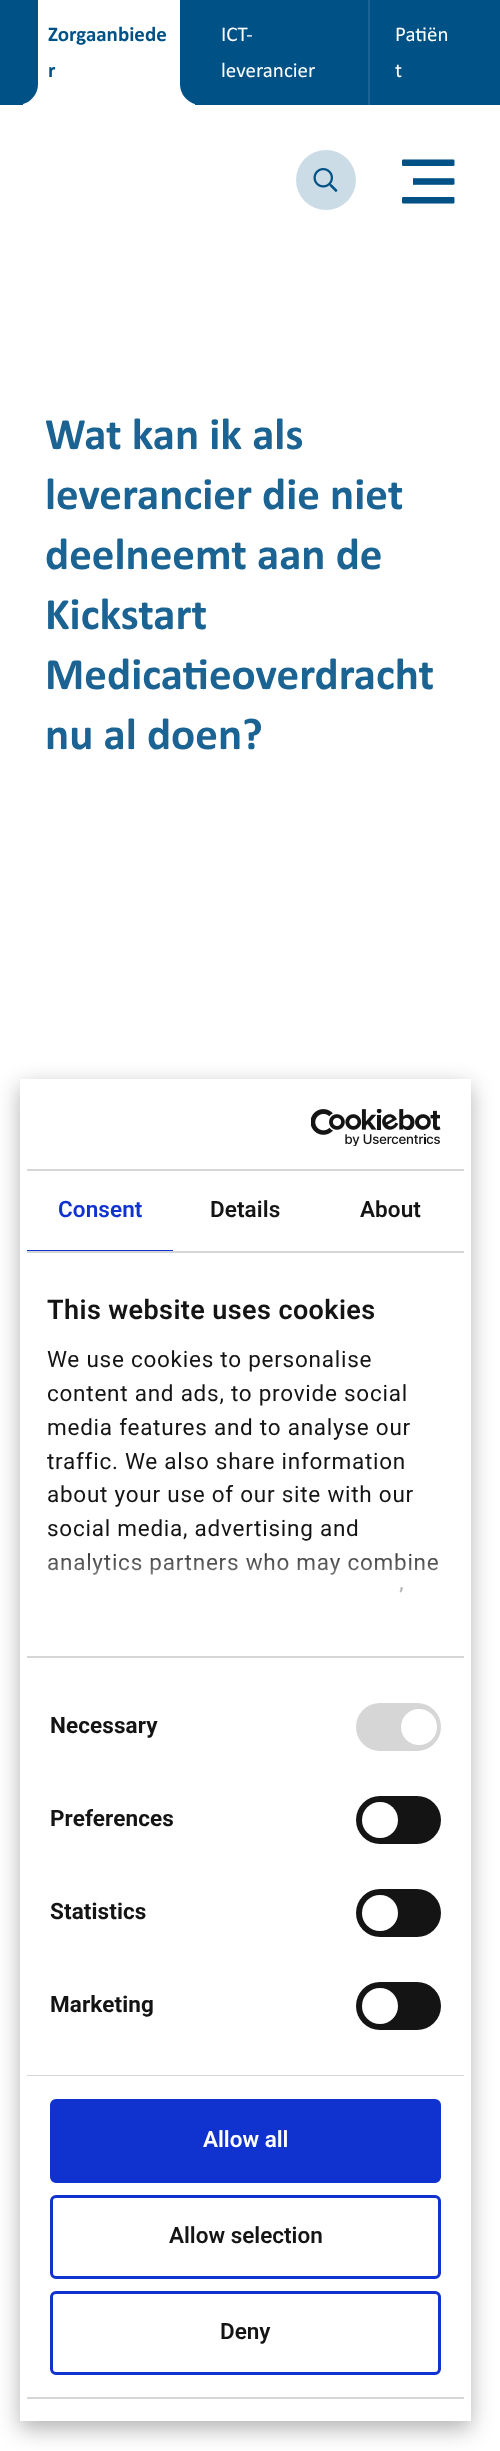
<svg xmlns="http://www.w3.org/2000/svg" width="500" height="2451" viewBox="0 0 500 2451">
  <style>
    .t1 { font: bold 21px Calibri; fill: #005286; }
    .t2 { font: 21px Calibri; fill: #fff; }
    .t3 { font: bold 45px Calibri; fill: #1a6392; }
    .t4 { font: 600 22.5px Roboto; letter-spacing: 0.1px; fill: #1032cf; }
    .t5 { font: 600 22.5px Roboto; letter-spacing: 0.1px; fill: #141414; }
    .t6 { font: 600 27px Roboto; letter-spacing: 0.4px; fill: #141414; }
    .t7 { font: 22.5px Roboto; letter-spacing: 0.75px; fill: #141414; }
    .t8 { font: bold 22.5px Roboto; letter-spacing: 0.1px; fill: #141414; }
    .t9 { font: 600 22.5px Roboto; fill: #fff; }
    .t10 { font: 600 22.5px Roboto; fill: #141414; }
  </style>
  <defs>
    <linearGradient id="g1" gradientUnits="userSpaceOnUse" x1="236" y1="1656" x2="236" y2="1544"><stop offset="0" stop-color="#fff"/><stop offset="0.5" stop-color="#fff" stop-opacity="0.8"/><stop offset="1" stop-color="#fff" stop-opacity="0"/></linearGradient>
  </defs>
  <rect width="100%" height="100%" fill="#fff"/>
  <rect x="0" y="0" width="500" height="105" fill="#005286"/>
  <rect x="23" y="0" width="172" height="105" fill="#fff"/>
  <path d="M17 0H38V84C38 95.5 28.5 105 17 105Z" fill="#005286"/>
  <text x="48" y="41" class="t1">Zorgaanbiede</text>
  <path d="M201 0H180V84C180 96 190 105 201 105Z" fill="#005286"/>
  <text x="48" y="77" class="t1">r</text>
  <rect x="368" y="0" width="2" height="105" fill="#1a6392"/>
  <text x="221" y="41" class="t2">ICT-</text>
  <text x="221" y="77" class="t2">leverancier</text>
  <text x="395" y="41" class="t2">Patiën</text>
  <text x="395" y="77" class="t2">t</text>
  <circle cx="326" cy="180" r="30" fill="#ccdce7"/>
  <image x="313" y="168" width="25" height="24" href="images/1.png"/>
  <image x="402" y="159" width="53" height="45" href="images/2.png"/>
  <rect x="402" y="178" width="11" height="7" fill="#fff"/>
  <text x="45" y="449" class="t3">Wat kan ik als</text>
  <text x="45" y="509" class="t3">leverancier die niet</text>
  <text x="45" y="569" class="t3">deelneemt aan de</text>
  <text x="45" y="629" class="t3">Kickstart</text>
  <text x="45" y="689" class="t3">Medicatieoverdracht</text>
  <text x="45" y="749" class="t3">nu al doen?</text>
  <rect x="20" y="1086" width="451" height="1343" fill="#0000004d" filter="blur(11px)"/>
  <rect x="20" y="1079" width="451" height="1342" fill="#fff"/>
  <rect x="27" y="1169" width="437" height="2" fill="#d6d6d6"/>
  <image x="311" y="1109" width="130" height="37" href="images/3.png"/>
  <rect x="27" y="1251" width="437" height="2" fill="#d6d6d6"/>
  <rect x="27" y="1250" width="146" height="1" fill="#1032cf"/>
  <text x="58" y="1217" class="t4">Consent</text>
  <text x="210" y="1217" class="t5">Details</text>
  <text x="360" y="1217" class="t5">About</text>
  <rect x="27" y="1656" width="437" height="2" fill="#d6d6d6"/>
  <text x="47" y="1319" class="t6">This website uses cookies</text>
  <text x="47" y="1367" class="t7">We use cookies to personalise</text>
  <text x="47" y="1401" class="t7">content and ads, to provide social</text>
  <text x="47" y="1435" class="t7">media features and to analyse our</text>
  <text x="47" y="1469" class="t7">traffic. We also share information</text>
  <text x="47" y="1502" class="t7">about your use of our site with our</text>
  <text x="47" y="1536" class="t7">social media, advertising and</text>
  <text x="47" y="1570" class="t7">analytics partners who may combine</text>
  <text x="399" y="1604" class="t7">’</text>
  <rect x="48" y="1553" width="391" height="40" fill="url(#g1)"/>
  <rect x="27" y="2075" width="437" height="1" fill="#d6d6d6"/>
  <text x="50" y="1733" class="t8">Necessary</text>
  <rect x="356" y="1703" width="85" height="48" rx="24" fill="#d6d6d6"/>
  <circle cx="419" cy="1727" r="18" fill="#fff"/>
  <text x="50" y="1826" class="t8">Preferences</text>
  <rect x="356" y="1796" width="85" height="48" rx="24" fill="#141414"/>
  <circle cx="380" cy="1820" r="18" fill="#fff"/>
  <text x="50" y="1919" class="t8">Statistics</text>
  <rect x="356" y="1889" width="85" height="48" rx="24" fill="#141414"/>
  <circle cx="380" cy="1913" r="18" fill="#fff"/>
  <text x="50" y="2012" class="t8">Marketing</text>
  <rect x="356" y="1982" width="85" height="48" rx="24" fill="#141414"/>
  <circle cx="380" cy="2006" r="18" fill="#fff"/>
  <rect x="27" y="2397" width="437" height="2" fill="#d6d6d6"/>
  <rect x="51.5" y="2100.5" width="388" height="81" rx="4.5" fill="#1032cf" stroke="#1032cf" stroke-width="3"/>
  <text x="203" y="2147" class="t9">Allow all</text>
  <rect x="51.5" y="2196.5" width="388" height="81" rx="4.5" fill="none" stroke="#1032cf" stroke-width="3"/>
  <text x="169" y="2243" class="t10">Allow selection</text>
  <rect x="51.5" y="2292.5" width="388" height="81" rx="4.5" fill="none" stroke="#1032cf" stroke-width="3"/>
  <text x="220" y="2339" class="t10">Deny</text>
</svg>
